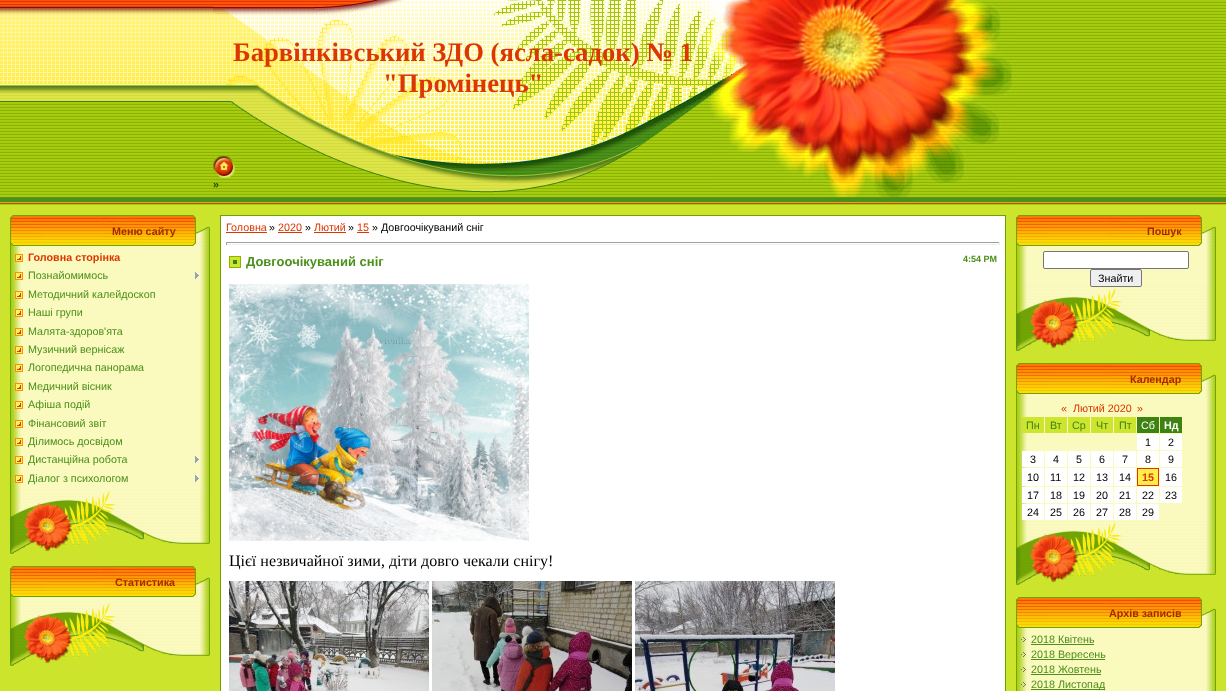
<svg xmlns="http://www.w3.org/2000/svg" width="1226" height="691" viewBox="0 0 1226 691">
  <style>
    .t1 { font: bold 26.7px Liberation Serif; fill: #dc3700; }
    .t2 { font: bold 10.75px Liberation Sans; fill: #1f4d00; }
    .t3 { font: bold 10.75px Liberation Sans; fill: #a42900; }
    .t4 { font: bold 10.75px Liberation Sans; fill: #dc3700; }
    .t5 { font: 10.75px Liberation Sans; fill: #4b901a; }
    .t6 { font: 10.75px Liberation Sans; fill: #dc3700; }
    .t7 { font: 10.75px Liberation Sans; fill: #000; }
    .t8 { font: bold 13px Liberation Sans; fill: #4b901a; }
    .t9 { font: bold 9px Liberation Sans; fill: #4b901a; }
    .t10 { font: 16px Liberation Serif; fill: #000; }
    .t11 { font: 10.75px Liberation Sans; fill: #3e8311; }
    .t12 { font: 10.75px Liberation Sans; fill: #fff; }
    .t13 { font: bold 10.75px Liberation Sans; fill: #fff; }
  </style>
  <rect width="100%" height="100%" fill="#cce42c"/>
  <image x="0" y="0" width="213" height="205" href="images/1.png"/>
  <image x="213" y="0" width="500" height="8" href="images/2.png"/>
  <image x="713" y="0" width="300" height="205" href="images/3.png"/>
  <image x="1013" y="0" width="213" height="205" href="images/4.png"/>
  <image x="213" y="8" width="500" height="120" href="images/5.png"/>
  <text x="233" y="61" class="t1">Барвінківський ЗДО (ясла-садок) № 1</text>
  <text x="383" y="92" class="t1">"Промінець"</text>
  <image x="213" y="128" width="500" height="77" href="images/6.png"/>
  <image x="213" y="156" width="22" height="22" href="images/7.png"/>
  <text x="213" y="188" class="t2">»</text>
  <image x="10" y="215" width="200" height="31" href="images/8.png"/>
  <text x="112" y="235" class="t3">Меню сайту</text>
  <image x="10" y="246" width="200" height="244" href="images/9.png"/>
  <image x="15" y="254" width="8" height="8" href="images/10.png"/>
  <text x="28" y="261" class="t4">Головна сторінка</text>
  <image x="15" y="272" width="8" height="8" href="images/10.png"/>
  <text x="28" y="279" class="t5">Познайомимось</text>
  <image x="195" y="272" width="4" height="7" href="images/11.png"/>
  <image x="15" y="291" width="8" height="8" href="images/10.png"/>
  <text x="28" y="298" class="t5">Методичний калейдоскоп</text>
  <image x="15" y="309" width="8" height="8" href="images/10.png"/>
  <text x="28" y="316" class="t5">Наші групи</text>
  <image x="15" y="328" width="8" height="8" href="images/10.png"/>
  <text x="28" y="335" class="t5">Малята-здоров'ята</text>
  <image x="15" y="346" width="8" height="8" href="images/10.png"/>
  <text x="28" y="353" class="t5">Музичний вернісаж</text>
  <image x="15" y="364" width="8" height="8" href="images/10.png"/>
  <text x="28" y="371" class="t5">Логопедична панорама</text>
  <image x="15" y="383" width="8" height="8" href="images/10.png"/>
  <text x="28" y="390" class="t5">Медичний вісник</text>
  <image x="15" y="401" width="8" height="8" href="images/10.png"/>
  <text x="28" y="408" class="t5">Афіша подій</text>
  <image x="15" y="420" width="8" height="8" href="images/10.png"/>
  <text x="28" y="427" class="t5">Фінансовий звіт</text>
  <image x="15" y="438" width="8" height="8" href="images/10.png"/>
  <text x="28" y="445" class="t5">Ділимось досвідом</text>
  <image x="15" y="456" width="8" height="8" href="images/10.png"/>
  <text x="28" y="463" class="t5">Дистанційна робота</text>
  <image x="195" y="456" width="4" height="7" href="images/11.png"/>
  <image x="15" y="475" width="8" height="8" href="images/10.png"/>
  <text x="28" y="482" class="t5">Діалог з психологом</text>
  <image x="195" y="475" width="4" height="7" href="images/11.png"/>
  <image x="10" y="490" width="200" height="64" href="images/12.png"/>
  <image x="10" y="566" width="200" height="31" href="images/8.png"/>
  <text x="115" y="586" class="t3">Статистика</text>
  <image x="10" y="597" width="200" height="5" href="images/13.png"/>
  <image x="10" y="602" width="200" height="64" href="images/12.png"/>
  <rect x="220.5" y="215.5" width="785" height="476" fill="none" stroke="#6da104"/>
  <rect x="221" y="216" width="784" height="475" fill="#fff"/>
  <text x="226" y="231" class="t6">Головна</text>
  <rect x="226" y="232" width="41" height="1" fill="#dc3700"/>
  <text x="269" y="231" class="t7">»</text>
  <text x="278" y="231" class="t6">2020</text>
  <rect x="278" y="232" width="24" height="1" fill="#dc3700"/>
  <text x="305" y="231" class="t7">»</text>
  <text x="314" y="231" class="t6">Лютий</text>
  <rect x="314" y="232" width="32" height="1" fill="#dc3700"/>
  <text x="348" y="231" class="t7">»</text>
  <text x="357" y="231" class="t6">15</text>
  <rect x="357" y="232" width="12" height="1" fill="#dc3700"/>
  <text x="372" y="231" class="t7">» Довгоочікуваний сніг</text>
  <rect x="226" y="242" width="774" height="1" fill="#9f9f9f"/>
  <rect x="999" y="242" width="1" height="3" fill="#eee"/>
  <rect x="226" y="244" width="774" height="1" fill="#eee"/>
  <rect x="226" y="242" width="1" height="3" fill="#9f9f9f"/>
  <image x="229" y="256" width="12" height="12" href="images/14.png"/>
  <text x="246" y="266" class="t8">Довгоочікуваний сніг</text>
  <text x="963" y="262" class="t9">4:54 PM</text>
  <image x="229" y="284" width="300" height="257" href="images/15.png"/>
  <text x="229" y="566" class="t10">Цієї незвичайної зими, діти довго чекали снігу!</text>
  <image x="229" y="581" width="200" height="110" href="images/16.png"/>
  <image x="432" y="581" width="200" height="110" href="images/17.png"/>
  <image x="635" y="581" width="200" height="110" href="images/18.png"/>
  <image x="1016" y="215" width="200" height="31" href="images/8.png"/>
  <text x="1147" y="235" class="t3">Пошук</text>
  <image x="1016" y="246" width="200" height="41" href="images/19.png"/>
  <rect x="1043.5" y="251.5" width="145" height="17" rx="1.5" fill="#fff" stroke="#767676"/>
  <rect x="1090.5" y="269.5" width="51" height="17" rx="1.5" fill="#efefef" stroke="#767676"/>
  <text x="1098" y="282" class="t7">Знайти</text>
  <image x="1016" y="287" width="200" height="64" href="images/12.png"/>
  <image x="1016" y="363" width="200" height="31" href="images/8.png"/>
  <text x="1130" y="383" class="t3">Календар</text>
  <image x="1016" y="394" width="200" height="127" href="images/20.png"/>
  <text x="1061" y="412" class="t6">«</text>
  <text x="1073" y="412" class="t6">Лютий 2020</text>
  <text x="1137" y="412" class="t6">»</text>
  <rect x="1022" y="417" width="22" height="16" fill="#cee530"/>
  <text x="1026" y="429" class="t11">Пн</text>
  <rect x="1045" y="417" width="22" height="16" fill="#cee530"/>
  <text x="1050" y="429" class="t11">Вт</text>
  <rect x="1068" y="417" width="22" height="16" fill="#cee530"/>
  <text x="1072" y="429" class="t11">Ср</text>
  <rect x="1091" y="417" width="22" height="16" fill="#cee530"/>
  <text x="1096" y="429" class="t11">Чт</text>
  <rect x="1114" y="417" width="22" height="16" fill="#cee530"/>
  <text x="1119" y="429" class="t11">Пт</text>
  <rect x="1137" y="417" width="22" height="16" fill="#3e8311"/>
  <text x="1141" y="429" class="t12">Сб</text>
  <rect x="1160" y="417" width="22" height="16" fill="#3e8311"/>
  <text x="1164" y="429" class="t13">Нд</text>
  <rect x="1137" y="434" width="22" height="16" fill="#fff"/>
  <text x="1145" y="446" class="t7">1</text>
  <rect x="1160" y="434" width="22" height="16" fill="#fff"/>
  <text x="1168" y="446" class="t7">2</text>
  <rect x="1022" y="451" width="22" height="16" fill="#fff"/>
  <text x="1030" y="463" class="t7">3</text>
  <rect x="1045" y="451" width="22" height="16" fill="#fff"/>
  <text x="1053" y="463" class="t7">4</text>
  <rect x="1068" y="451" width="22" height="16" fill="#fff"/>
  <text x="1076" y="463" class="t7">5</text>
  <rect x="1091" y="451" width="22" height="16" fill="#fff"/>
  <text x="1099" y="463" class="t7">6</text>
  <rect x="1114" y="451" width="22" height="16" fill="#fff"/>
  <text x="1122" y="463" class="t7">7</text>
  <rect x="1137" y="451" width="22" height="16" fill="#fff"/>
  <text x="1145" y="463" class="t7">8</text>
  <rect x="1160" y="451" width="22" height="16" fill="#fff"/>
  <text x="1168" y="463" class="t7">9</text>
  <rect x="1022" y="468" width="22" height="18" fill="#fff"/>
  <text x="1027" y="481" class="t7">10</text>
  <rect x="1045" y="468" width="22" height="18" fill="#fff"/>
  <text x="1050" y="481" class="t7">11</text>
  <rect x="1068" y="468" width="22" height="18" fill="#fff"/>
  <text x="1073" y="481" class="t7">12</text>
  <rect x="1091" y="468" width="22" height="18" fill="#fff"/>
  <text x="1096" y="481" class="t7">13</text>
  <rect x="1114" y="468" width="22" height="18" fill="#fff"/>
  <text x="1119" y="481" class="t7">14</text>
  <rect x="1137.5" y="468.5" width="21" height="17" fill="#ffee4d" stroke="#dc3700"/>
  <text x="1142" y="481" class="t4">15</text>
  <rect x="1160" y="468" width="22" height="18" fill="#fff"/>
  <text x="1165" y="481" class="t7">16</text>
  <rect x="1022" y="487" width="22" height="16" fill="#fff"/>
  <text x="1027" y="499" class="t7">17</text>
  <rect x="1045" y="487" width="22" height="16" fill="#fff"/>
  <text x="1050" y="499" class="t7">18</text>
  <rect x="1068" y="487" width="22" height="16" fill="#fff"/>
  <text x="1073" y="499" class="t7">19</text>
  <rect x="1091" y="487" width="22" height="16" fill="#fff"/>
  <text x="1096" y="499" class="t7">20</text>
  <rect x="1114" y="487" width="22" height="16" fill="#fff"/>
  <text x="1119" y="499" class="t7">21</text>
  <rect x="1137" y="487" width="22" height="16" fill="#fff"/>
  <text x="1142" y="499" class="t7">22</text>
  <rect x="1160" y="487" width="22" height="16" fill="#fff"/>
  <text x="1165" y="499" class="t7">23</text>
  <rect x="1022" y="504" width="22" height="16" fill="#fff"/>
  <text x="1027" y="516" class="t7">24</text>
  <rect x="1045" y="504" width="22" height="16" fill="#fff"/>
  <text x="1050" y="516" class="t7">25</text>
  <rect x="1068" y="504" width="22" height="16" fill="#fff"/>
  <text x="1073" y="516" class="t7">26</text>
  <rect x="1091" y="504" width="22" height="16" fill="#fff"/>
  <text x="1096" y="516" class="t7">27</text>
  <rect x="1114" y="504" width="22" height="16" fill="#fff"/>
  <text x="1119" y="516" class="t7">28</text>
  <rect x="1137" y="504" width="22" height="16" fill="#fff"/>
  <text x="1142" y="516" class="t7">29</text>
  <image x="1016" y="521" width="200" height="64" href="images/12.png"/>
  <image x="1016" y="597" width="200" height="31" href="images/8.png"/>
  <text x="1109" y="617" class="t3">Архів записів</text>
  <image x="1016" y="628" width="200" height="63" href="images/21.png"/>
  <image x="1021" y="637" width="5" height="5" href="images/22.png"/>
  <text x="1031" y="643" class="t5">2018 Квітень</text>
  <rect x="1031" y="644" width="63" height="1" fill="#4b901a"/>
  <image x="1021" y="652" width="5" height="5" href="images/22.png"/>
  <rect x="1031" y="659" width="74" height="1" fill="#4b901a"/>
  <text x="1031" y="658" class="t5">2018 Вересень</text>
  <image x="1021" y="667" width="5" height="5" href="images/22.png"/>
  <text x="1031" y="673" class="t5">2018 Жовтень</text>
  <rect x="1031" y="674" width="70" height="1" fill="#4b901a"/>
  <image x="1021" y="682" width="5" height="5" href="images/22.png"/>
  <rect x="1031" y="689" width="74" height="1" fill="#4b901a"/>
  <text x="1031" y="688" class="t5">2018 Листопад</text>
</svg>
